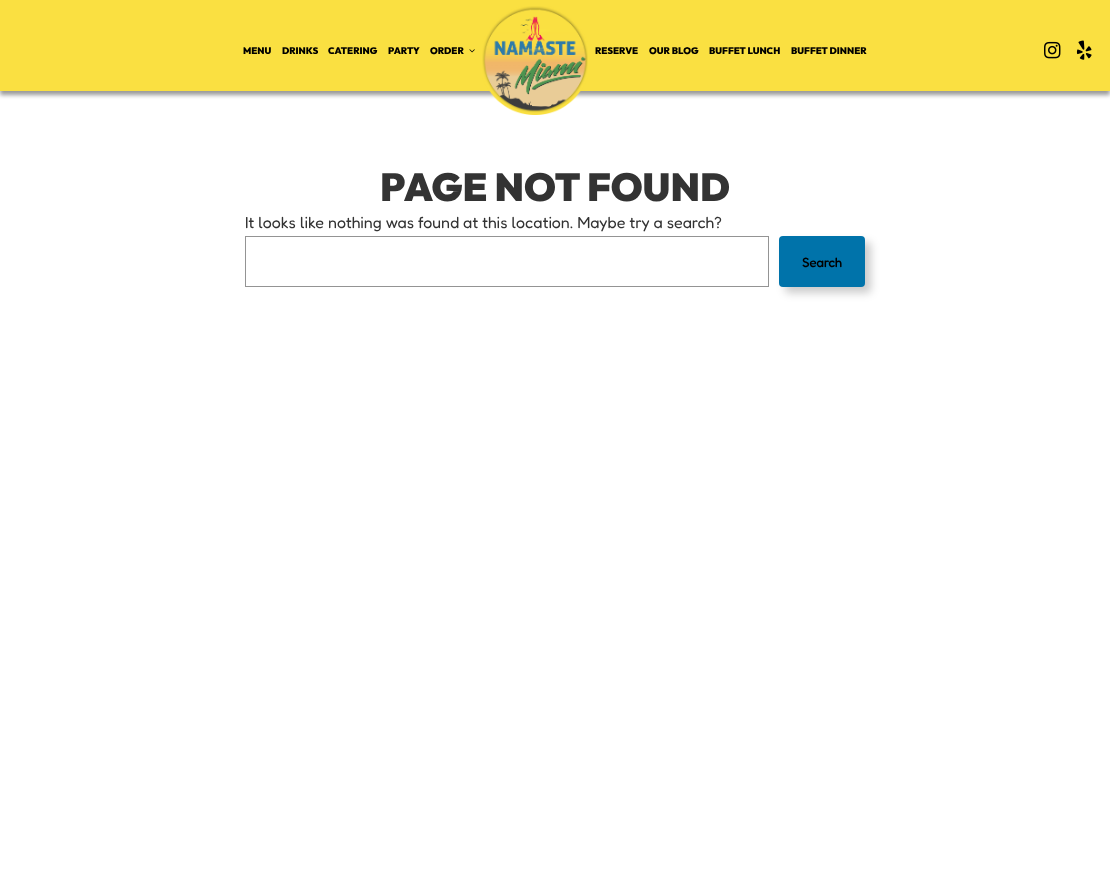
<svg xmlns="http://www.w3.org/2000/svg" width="1110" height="869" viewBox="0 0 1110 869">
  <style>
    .t1 { font: 900 9.5px Outfit; fill: #000; }
    .t2 { font: 900 39px Outfit; fill: #333; }
    .t3 { font: 16px Fredoka; fill: #333; }
    .t4 { font: bold 13px Fredoka; fill: #000; }
  </style>
  <rect width="100%" height="100%" fill="#fff"/>
  <rect x="0" y="4" width="1110" height="91" fill="#00000066" filter="blur(2px)"/>
  <rect x="0" y="0" width="1110" height="91" fill="#fae041"/>
  <text x="243" y="54" class="t1">MENU</text>
  <text x="282" y="54" class="t1">DRINKS</text>
  <text x="328" y="54" class="t1">CATERING</text>
  <text x="388" y="54" class="t1">PARTY</text>
  <text x="430" y="54" class="t1">ORDER</text>
  <image x="469" y="49" width="6" height="4" href="images/1.png"/>
  <image x="482" y="6" width="106" height="109" href="images/2.png"/>
  <text x="595" y="54" class="t1">RESERVE</text>
  <text x="649" y="54" class="t1">OUR BLOG</text>
  <text x="709" y="54" class="t1">BUFFET LUNCH</text>
  <text x="791" y="54" class="t1">BUFFET DINNER</text>
  <image x="1044" y="41" width="17" height="18" href="images/3.png"/>
  <image x="1076" y="40" width="16" height="20" href="images/4.png"/>
  <text x="380" y="201" class="t2">PAGE NOT FOUND</text>
  <text x="245" y="228" class="t3">It looks like nothing was found at this location. Maybe try a search?</text>
  <rect x="245.5" y="236.5" width="523" height="50" fill="none" stroke="#949494"/>
  <rect x="785" y="242" width="86" height="51" rx="4" fill="#00000033" filter="blur(4.5px)"/>
  <rect x="779" y="236" width="86" height="51" rx="4" fill="#0073aa"/>
  <text x="802" y="267" class="t4">Search</text>
</svg>
